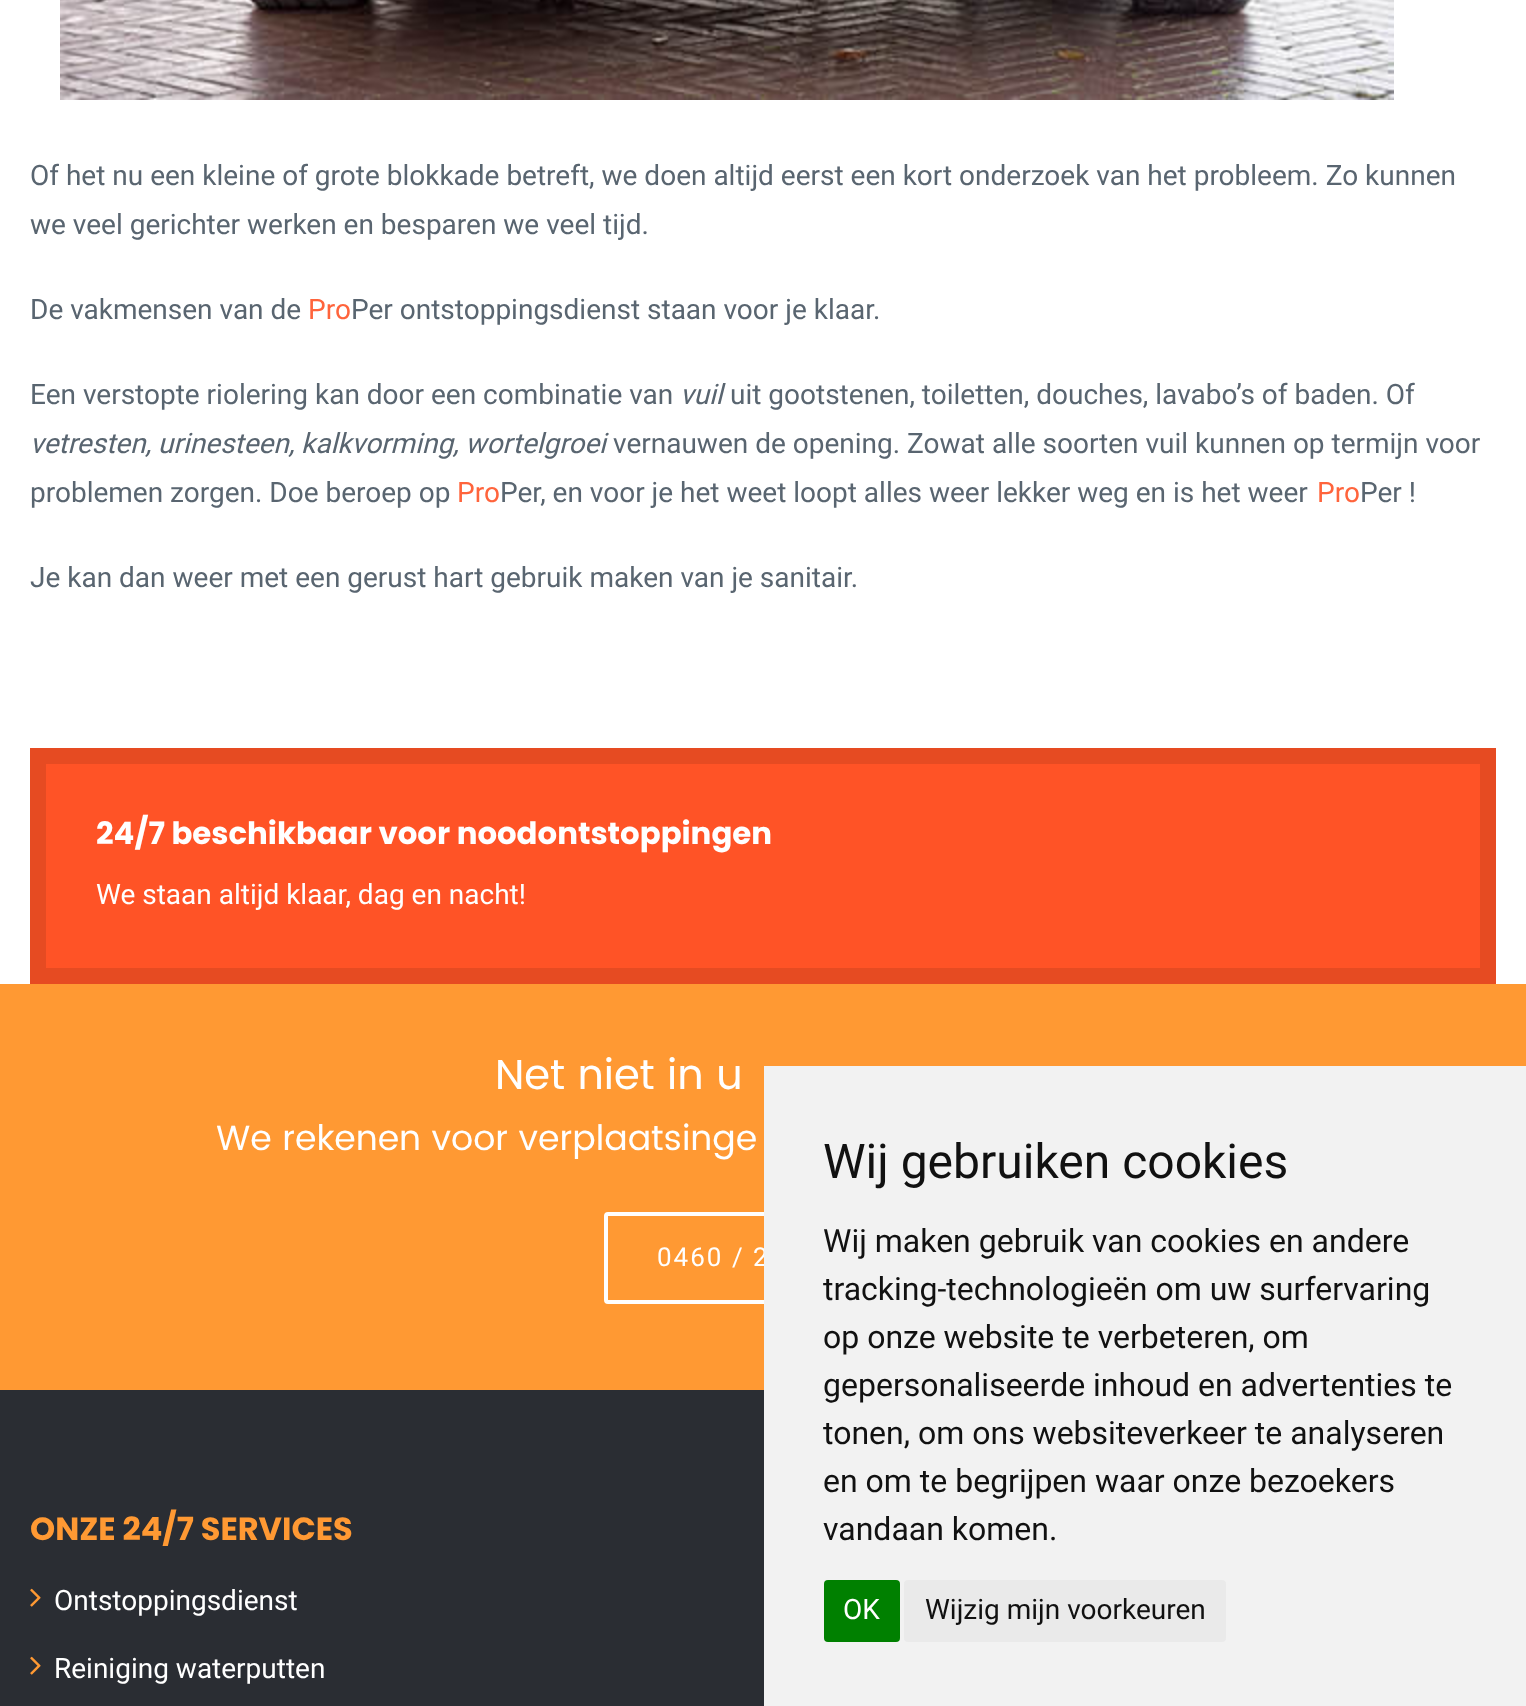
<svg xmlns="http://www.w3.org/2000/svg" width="1526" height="1706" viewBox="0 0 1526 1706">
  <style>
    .t1 { font: 28px Roboto; fill: #596570; }
    .t2 { font: 28px Roboto; fill: #ff643c; }
    .t3 { font: italic 28px Roboto; fill: #596570; }
    .t4 { font: bold 30.8px Poppins; fill: #fff; }
    .t5 { font: 28px Roboto; fill: #fff; }
    .t6 { font: bold 32px Poppins; fill: #f93; }
    .t7 { font: 42px Poppins; fill: #fff; }
    .t8 { font: 35px Poppins; fill: #fff; }
    .t9 { font: 26px Roboto; letter-spacing: 2px; fill: #fff; }
    .t10 { font: 48px Roboto; fill: #111; }
    .t11 { font: 32px Roboto; fill: #111; }
    .t12 { font: 28px Roboto; fill: #111; }
  </style>
  <rect width="100%" height="100%" fill="#fff"/>
  <image x="60" y="0" width="1334" height="100" href="images/1.png"/>
  <text x="30" y="185" class="t1">Of het nu een kleine of grote blokkade betreft, we doen altijd eerst een kort onderzoek van het probleem. Zo kunnen</text>
  <text x="30" y="234" class="t1">we veel gerichter werken en besparen we veel tijd.</text>
  <text x="30" y="319" class="t1">De vakmensen van de</text>
  <text x="308" y="319" class="t2">Pro</text>
  <text x="351" y="319" class="t1">Per ontstoppingsdienst staan voor je klaar.</text>
  <text x="30" y="404" class="t1">Een verstopte riolering kan door een combinatie van</text>
  <text x="680" y="404" class="t3">vuil</text>
  <text x="730" y="404" class="t1">uit gootstenen, toiletten, douches, lavabo’s of baden. Of</text>
  <text x="30" y="453" class="t3">vetresten, urinesteen, kalkvorming, wortelgroei</text>
  <text x="613" y="453" class="t1">vernauwen de opening. Zowat alle soorten vuil kunnen op termijn voor</text>
  <text x="30" y="502" class="t1">problemen zorgen. Doe beroep op</text>
  <text x="457" y="502" class="t2">Pro</text>
  <text x="500" y="502" class="t1">Per, en voor je het weet loopt alles weer lekker weg en is het weer</text>
  <text x="1317" y="502" class="t2">Pro</text>
  <text x="1360" y="502" class="t1">Per !</text>
  <text x="30" y="587" class="t1">Je kan dan weer met een gerust hart gebruik maken van je sanitair.</text>
  <rect x="38" y="756" width="1450" height="220" fill="#ff5326" stroke="#e64b22" stroke-width="16"/>
  <text x="96" y="844" class="t4">24/7 beschikbaar voor noodontstoppingen</text>
  <text x="96" y="904" class="t5">We staan altijd klaar, dag en nacht!</text>
  <rect x="0" y="1390" width="764" height="316" fill="#2a2d33"/>
  <text x="30" y="1540" class="t6">ONZE 24/7 SERVICES</text>
  <image x="30" y="1588" width="11" height="19" href="images/2.png"/>
  <text x="54" y="1610" class="t5">Ontstoppingsdienst</text>
  <image x="30" y="1656" width="11" height="19" href="images/2.png"/>
  <text x="54" y="1678" class="t5">Reiniging waterputten</text>
  <rect x="0" y="984" width="1526" height="406" fill="#f93"/>
  <text x="495" y="1089" class="t7">Net niet in u</text>
  <text x="216" y="1150" class="t8">We rekenen voor verplaatsinge</text>
  <rect x="606" y="1214" width="316" height="88" rx="2" fill="none" stroke="#fff" stroke-width="4"/>
  <text x="657" y="1266" class="t9">0460 / 2</text>
  <rect x="764" y="1066" width="762" height="640" fill="#f2f2f2"/>
  <text x="823" y="1178" class="t10">Wij gebruiken cookies</text>
  <text x="823" y="1252" class="t11">Wij maken gebruik van cookies en andere</text>
  <text x="823" y="1300" class="t11">tracking-technologieën om uw surfervaring</text>
  <text x="823" y="1348" class="t11">op onze website te verbeteren, om</text>
  <text x="823" y="1396" class="t11">gepersonaliseerde inhoud en advertenties te</text>
  <text x="823" y="1444" class="t11">tonen, om ons websiteverkeer te analyseren</text>
  <text x="823" y="1492" class="t11">en om te begrijpen waar onze bezoekers</text>
  <text x="823" y="1540" class="t11">vandaan komen.</text>
  <rect x="824" y="1580" width="76" height="62" rx="4" fill="#008000"/>
  <text x="843" y="1619" class="t5">OK</text>
  <rect x="904" y="1580" width="322" height="62" rx="4" fill="#eaeaea"/>
  <text x="925" y="1619" class="t12">Wijzig mijn voorkeuren</text>
</svg>
